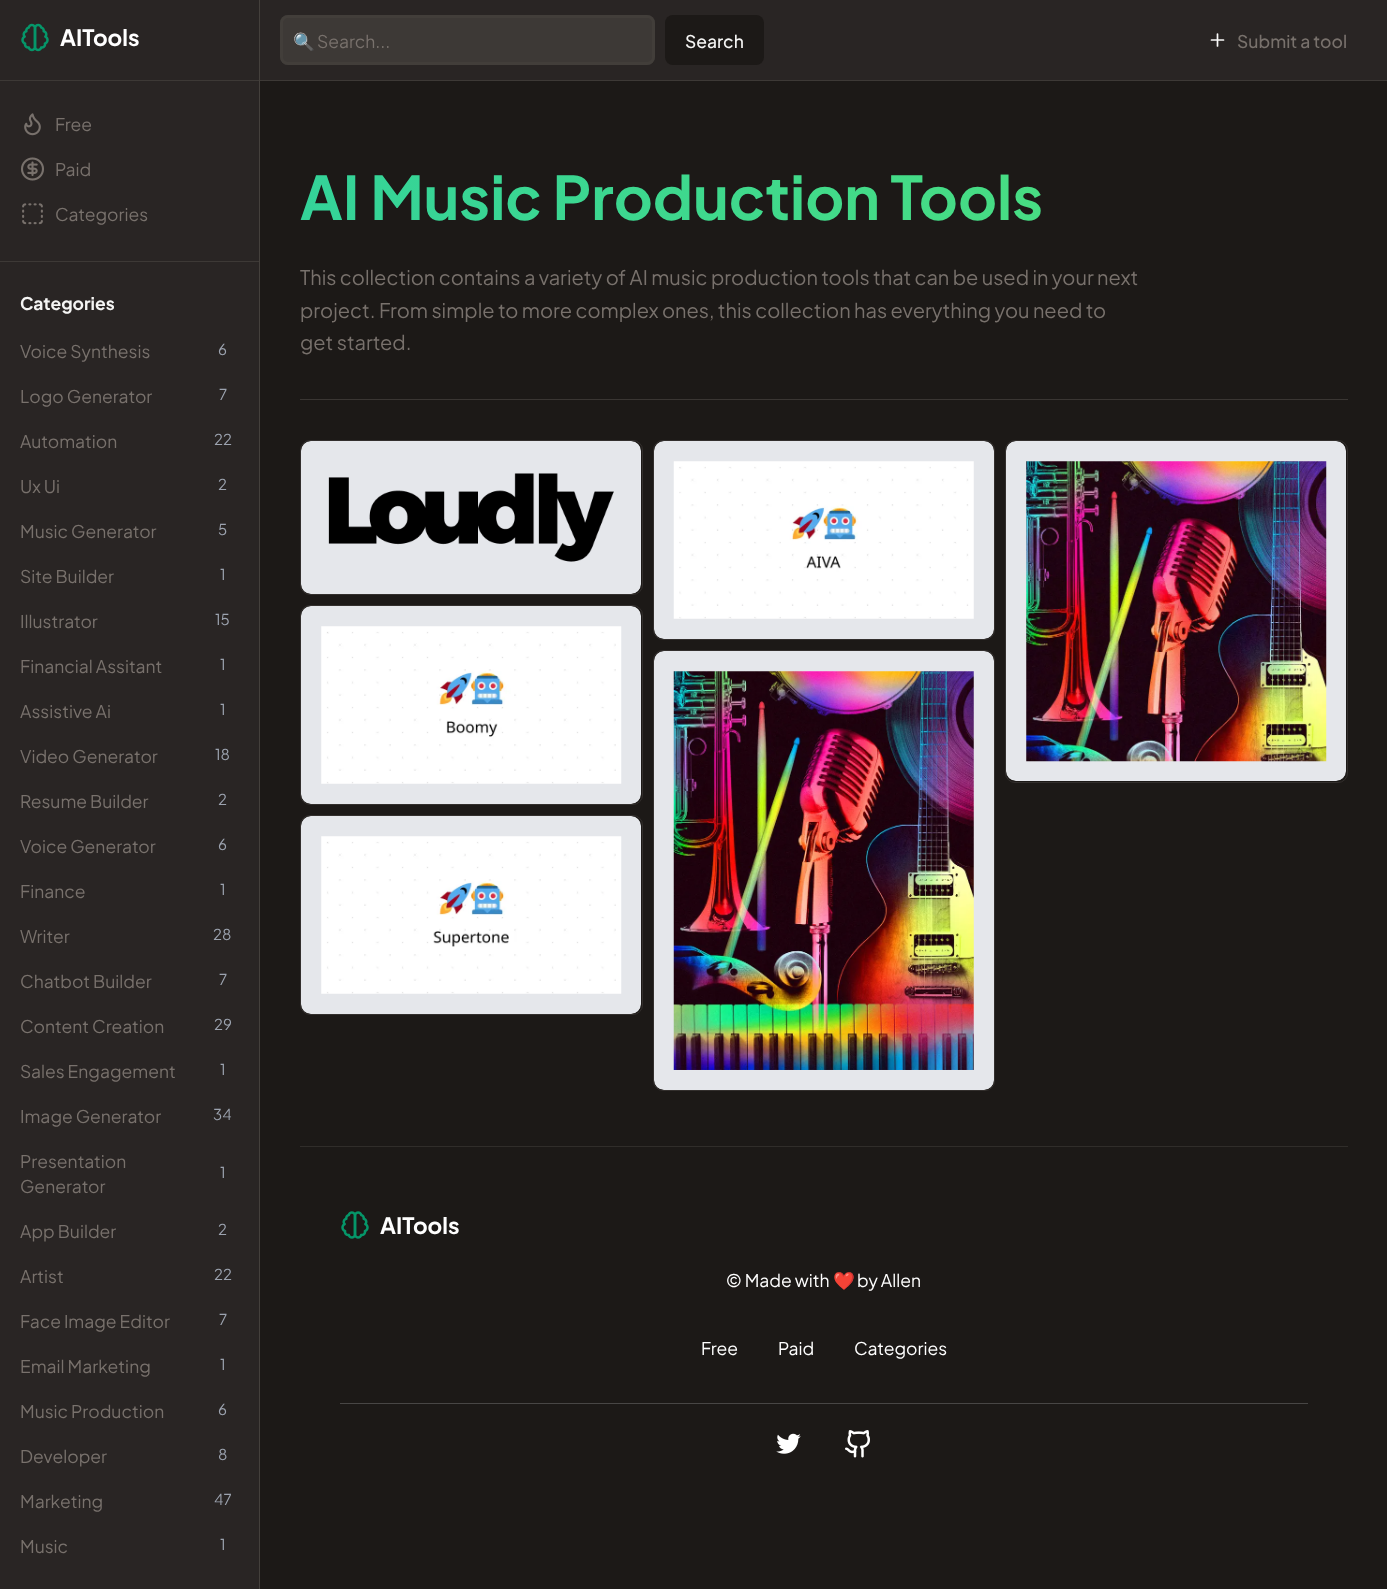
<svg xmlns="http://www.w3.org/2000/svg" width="1387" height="1589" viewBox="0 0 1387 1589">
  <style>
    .t1 { font: bold 22.5px Plus Jakarta Sans; fill: #fff; }
    .t2 { font: 17.5px Plus Jakarta Sans; fill: #78716c; }
    .t3 { font: bold 17.5px Plus Jakarta Sans; fill: #f5f5f4; }
    .t4 { font: 15px Plus Jakarta Sans; fill: #9ca3af; }
    .t5 { font: 17.5px Noto Color Emoji; fill: #78716c; }
    .t6 { font: 500 17.5px Plus Jakarta Sans; fill: #f5f5f4; }
    .t7 { font: 500 17.5px Plus Jakarta Sans; fill: #78716c; }
    .t8 { font: bold 60px Plus Jakarta Sans; fill: url(#g1); }
    .t9 { font: 20px Plus Jakarta Sans; fill: #78716c; }
    .t10 { font: 17.5px Plus Jakarta Sans; fill: #fff; }
    .t11 { font: 17.5px Noto Color Emoji; fill: #fff; }
  </style>
  <defs>
    <clipPath id="clip1"><rect x="293" y="29" width="332" height="22"/></clipPath>
    <linearGradient id="g1" gradientUnits="userSpaceOnUse" x1="300" y1="196" x2="1140" y2="196"><stop offset="0" stop-color="#34d399"/><stop offset="1" stop-color="#4ade80"/></linearGradient>
    <clipPath id="clip2"><rect x="301" y="441" width="340" height="153" rx="9"/></clipPath>
    <clipPath id="clip3"><rect x="654" y="441" width="340" height="198" rx="9"/></clipPath>
    <clipPath id="clip4"><rect x="1006" y="441" width="340" height="340" rx="9"/></clipPath>
    <clipPath id="clip5"><rect x="301" y="606" width="340" height="198" rx="9"/></clipPath>
    <clipPath id="clip6"><rect x="654" y="651" width="340" height="439" rx="9"/></clipPath>
    <clipPath id="clip7"><rect x="301" y="816" width="340" height="198" rx="9"/></clipPath>
  </defs>
  <rect width="100%" height="100%" fill="#292524"/>
  <rect x="259" y="0" width="1" height="1589" fill="#44403c"/>
  <rect x="0" y="80" width="259" height="1" fill="#3d3936"/>
  <image x="21" y="23" width="28" height="29" href="images/1.png"/>
  <text x="60" y="46" class="t1">AITools</text>
  <image x="24" y="113" width="17" height="23" href="images/2.png"/>
  <text x="55" y="131" class="t2">Free</text>
  <image x="21" y="157" width="23" height="24" href="images/3.png"/>
  <text x="55" y="176" class="t2">Paid</text>
  <image x="22" y="203" width="21" height="22" href="images/4.png"/>
  <text x="55" y="221" class="t2">Categories</text>
  <rect x="0" y="261" width="259" height="1" fill="#3d3936"/>
  <text x="20" y="310" class="t3">Categories</text>
  <text x="20" y="358" class="t2">Voice Synthesis</text>
  <text x="218" y="355" class="t4">6</text>
  <text x="20" y="403" class="t2">Logo Generator</text>
  <text x="219" y="400" class="t4">7</text>
  <text x="20" y="448" class="t2">Automation</text>
  <text x="214" y="445" class="t4">22</text>
  <text x="20" y="493" class="t2">Ux Ui</text>
  <text x="218" y="490" class="t4">2</text>
  <text x="20" y="538" class="t2">Music Generator</text>
  <text x="218" y="535" class="t4">5</text>
  <text x="20" y="583" class="t2">Site Builder</text>
  <text x="220" y="580" class="t4">1</text>
  <text x="20" y="628" class="t2">Illustrator</text>
  <text x="215" y="625" class="t4">15</text>
  <text x="20" y="673" class="t2">Financial Assitant</text>
  <text x="220" y="670" class="t4">1</text>
  <text x="20" y="718" class="t2">Assistive Ai</text>
  <text x="220" y="715" class="t4">1</text>
  <text x="20" y="763" class="t2">Video Generator</text>
  <text x="215" y="760" class="t4">18</text>
  <text x="20" y="808" class="t2">Resume Builder</text>
  <text x="218" y="805" class="t4">2</text>
  <text x="20" y="853" class="t2">Voice Generator</text>
  <text x="218" y="850" class="t4">6</text>
  <text x="20" y="898" class="t2">Finance</text>
  <text x="220" y="895" class="t4">1</text>
  <text x="20" y="943" class="t2">Writer</text>
  <text x="213" y="940" class="t4">28</text>
  <text x="20" y="988" class="t2">Chatbot Builder</text>
  <text x="219" y="985" class="t4">7</text>
  <text x="20" y="1033" class="t2">Content Creation</text>
  <text x="214" y="1030" class="t4">29</text>
  <text x="20" y="1078" class="t2">Sales Engagement</text>
  <text x="220" y="1075" class="t4">1</text>
  <text x="20" y="1123" class="t2">Image Generator</text>
  <text x="213" y="1120" class="t4">34</text>
  <text x="20" y="1168" class="t2">Presentation</text>
  <text x="20" y="1193" class="t2">Generator</text>
  <text x="220" y="1178" class="t4">1</text>
  <text x="20" y="1238" class="t2">App Builder</text>
  <text x="218" y="1235" class="t4">2</text>
  <text x="20" y="1283" class="t2">Artist</text>
  <text x="214" y="1280" class="t4">22</text>
  <text x="20" y="1328" class="t2">Face Image Editor</text>
  <text x="219" y="1325" class="t4">7</text>
  <text x="20" y="1373" class="t2">Email Marketing</text>
  <text x="220" y="1370" class="t4">1</text>
  <text x="20" y="1418" class="t2">Music Production</text>
  <text x="218" y="1415" class="t4">6</text>
  <text x="20" y="1463" class="t2">Developer</text>
  <text x="218" y="1460" class="t4">8</text>
  <text x="20" y="1508" class="t2">Marketing</text>
  <text x="214" y="1505" class="t4">47</text>
  <text x="20" y="1553" class="t2">Music</text>
  <text x="220" y="1550" class="t4">1</text>
  <rect x="260" y="81" width="1127" height="1508" fill="#1c1917"/>
  <rect x="260" y="80" width="1127" height="1" fill="#3d3936"/>
  <rect x="280" y="15" width="375" height="50" rx="8" fill="#3d3936"/>
  <rect x="281.5" y="16.5" width="372" height="47" rx="6.5" fill="none" stroke="#44403cbf" stroke-width="3"/>
  <g clip-path="url(#clip1)">
    <text x="293" y="48" class="t5">🔍</text>
  </g>
  <text x="317" y="48" class="t2">Search...</text>
  <rect x="665" y="15" width="99" height="50" rx="8" fill="#1c1917"/>
  <text x="685" y="48" class="t6">Search</text>
  <path d="M1211.5 40H1223.5M1217.5 34V46" fill="none" stroke="#fafaf9" stroke-width="1.7" stroke-linecap="round" stroke-linejoin="round"/>
  <text x="1237" y="48" class="t7">Submit a tool</text>
  <text x="300" y="220" class="t8">AI Music Production Tools</text>
  <text x="300" y="285" class="t9">This collection contains a variety of AI music production tools that can be used in your next</text>
  <text x="300" y="318" class="t9">project. From simple to more complex ones, this collection has everything you need to</text>
  <text x="300" y="350" class="t9">get started.</text>
  <rect x="300" y="399" width="1048" height="1" fill="#3a3633"/>
  <rect x="300.5" y="440.5" width="342" height="154" rx="9.5" fill="none" stroke="#332f2d"/>
  <g clip-path="url(#clip2)">
    <rect x="301" y="441" width="340" height="153" rx="10" fill="#e5e7eb"/>
  </g>
  <image x="328" y="473" width="286" height="89" href="images/5.png"/>
  <rect x="653.5" y="440.5" width="341" height="199" rx="9.5" fill="none" stroke="#332f2d"/>
  <g clip-path="url(#clip3)">
    <rect x="654" y="441" width="340" height="198" rx="10" fill="#e5e7eb"/>
  </g>
  <image x="673" y="461" width="301" height="158" href="images/6.png"/>
  <rect x="1005.5" y="440.5" width="342" height="342" rx="9.5" fill="none" stroke="#332f2d"/>
  <g clip-path="url(#clip4)">
    <rect x="1006" y="441" width="340" height="340" rx="10" fill="#e5e7eb"/>
  </g>
  <image x="1026" y="461" width="301" height="301" href="images/7.png"/>
  <rect x="300.5" y="605.5" width="342" height="199" rx="9.5" fill="none" stroke="#332f2d"/>
  <g clip-path="url(#clip5)">
    <rect x="301" y="606" width="340" height="198" rx="10" fill="#e5e7eb"/>
  </g>
  <image x="321" y="626" width="301" height="158" href="images/8.png"/>
  <rect x="653.5" y="650.5" width="341" height="440" rx="9.5" fill="none" stroke="#332f2d"/>
  <g clip-path="url(#clip6)">
    <rect x="654" y="651" width="340" height="439" rx="10" fill="#e5e7eb"/>
  </g>
  <image x="673" y="671" width="301" height="399" href="images/9.png"/>
  <rect x="300.5" y="815.5" width="342" height="199" rx="9.5" fill="none" stroke="#332f2d"/>
  <g clip-path="url(#clip7)">
    <rect x="301" y="816" width="340" height="198" rx="10" fill="#e5e7eb"/>
  </g>
  <image x="321" y="836" width="301" height="158" href="images/10.png"/>
  <rect x="300" y="1146" width="1048" height="1" fill="#302d2a"/>
  <image x="341" y="1211" width="28" height="28" href="images/11.png"/>
  <text x="380" y="1234" class="t1">AITools</text>
  <text x="726" y="1287" class="t10">© Made with</text>
  <text x="833" y="1287" class="t11">❤️</text>
  <text x="857" y="1287" class="t10">by Allen</text>
  <text x="701" y="1355" class="t10">Free</text>
  <text x="778" y="1355" class="t10">Paid</text>
  <text x="854" y="1355" class="t10">Categories</text>
  <rect x="340" y="1403" width="968" height="1" fill="#484645"/>
  <image x="776" y="1433" width="25" height="21" href="images/12.png"/>
  <image x="845" y="1430" width="25" height="28" href="images/13.png"/>
</svg>
